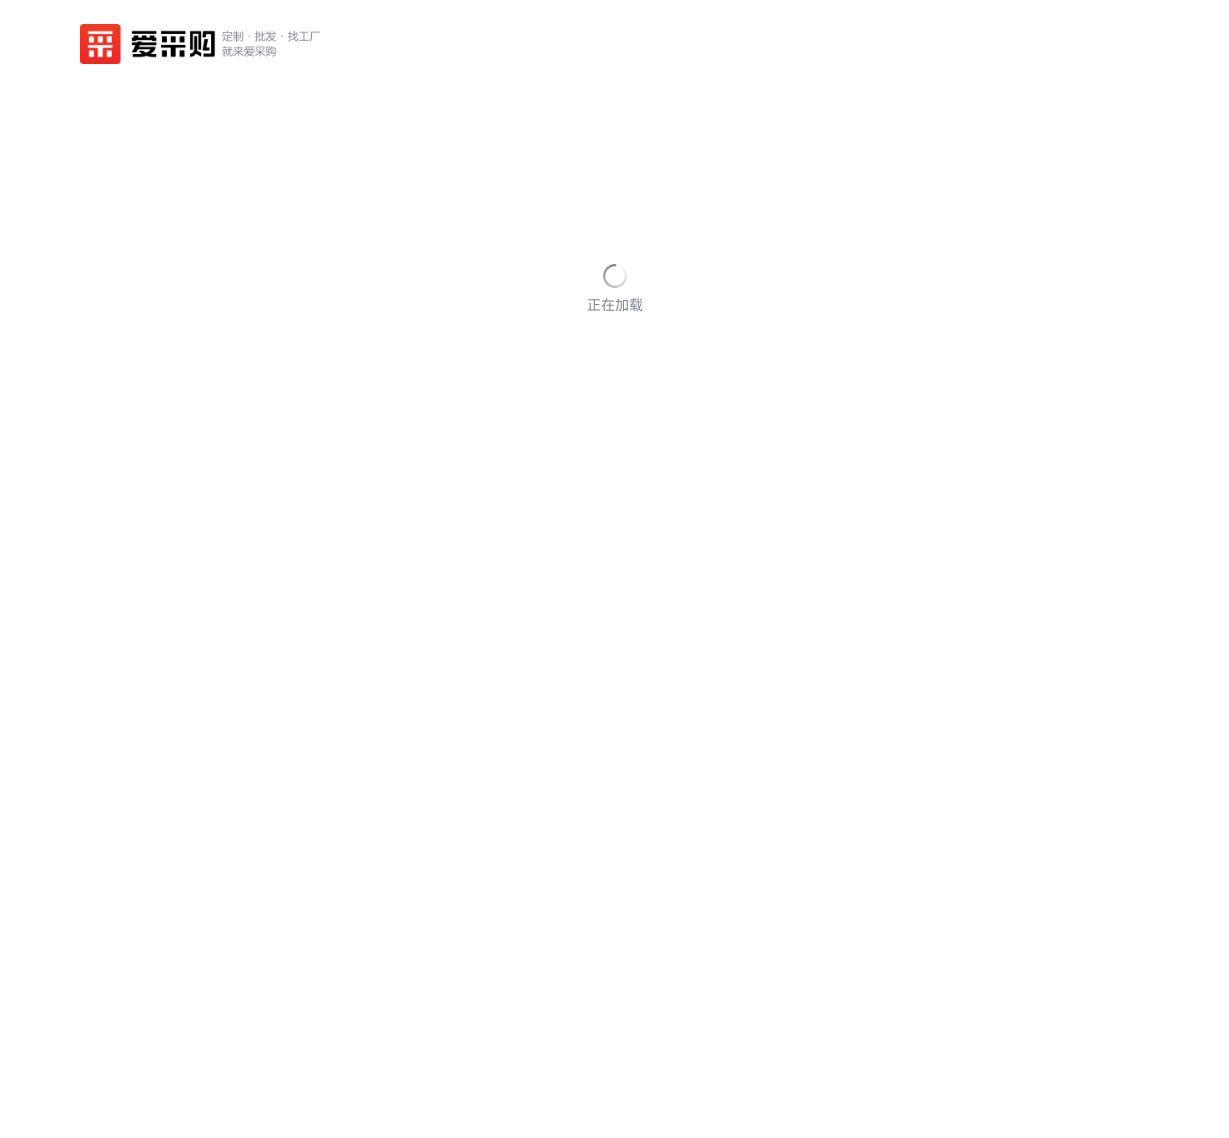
<svg xmlns="http://www.w3.org/2000/svg" width="1229" height="1138" viewBox="0 0 1229 1138">
  <style>
    .t1 { font: 14px Noto Sans CJK SC; fill: #848691; }
  </style>
  <rect width="100%" height="100%" fill="#fff"/>
  <image x="80" y="24" width="241" height="40" href="images/1.png"/>
  <image x="603" y="264" width="24" height="24" href="images/2.png"/>
  <text x="587" y="310" class="t1">正在加载</text>
</svg>
